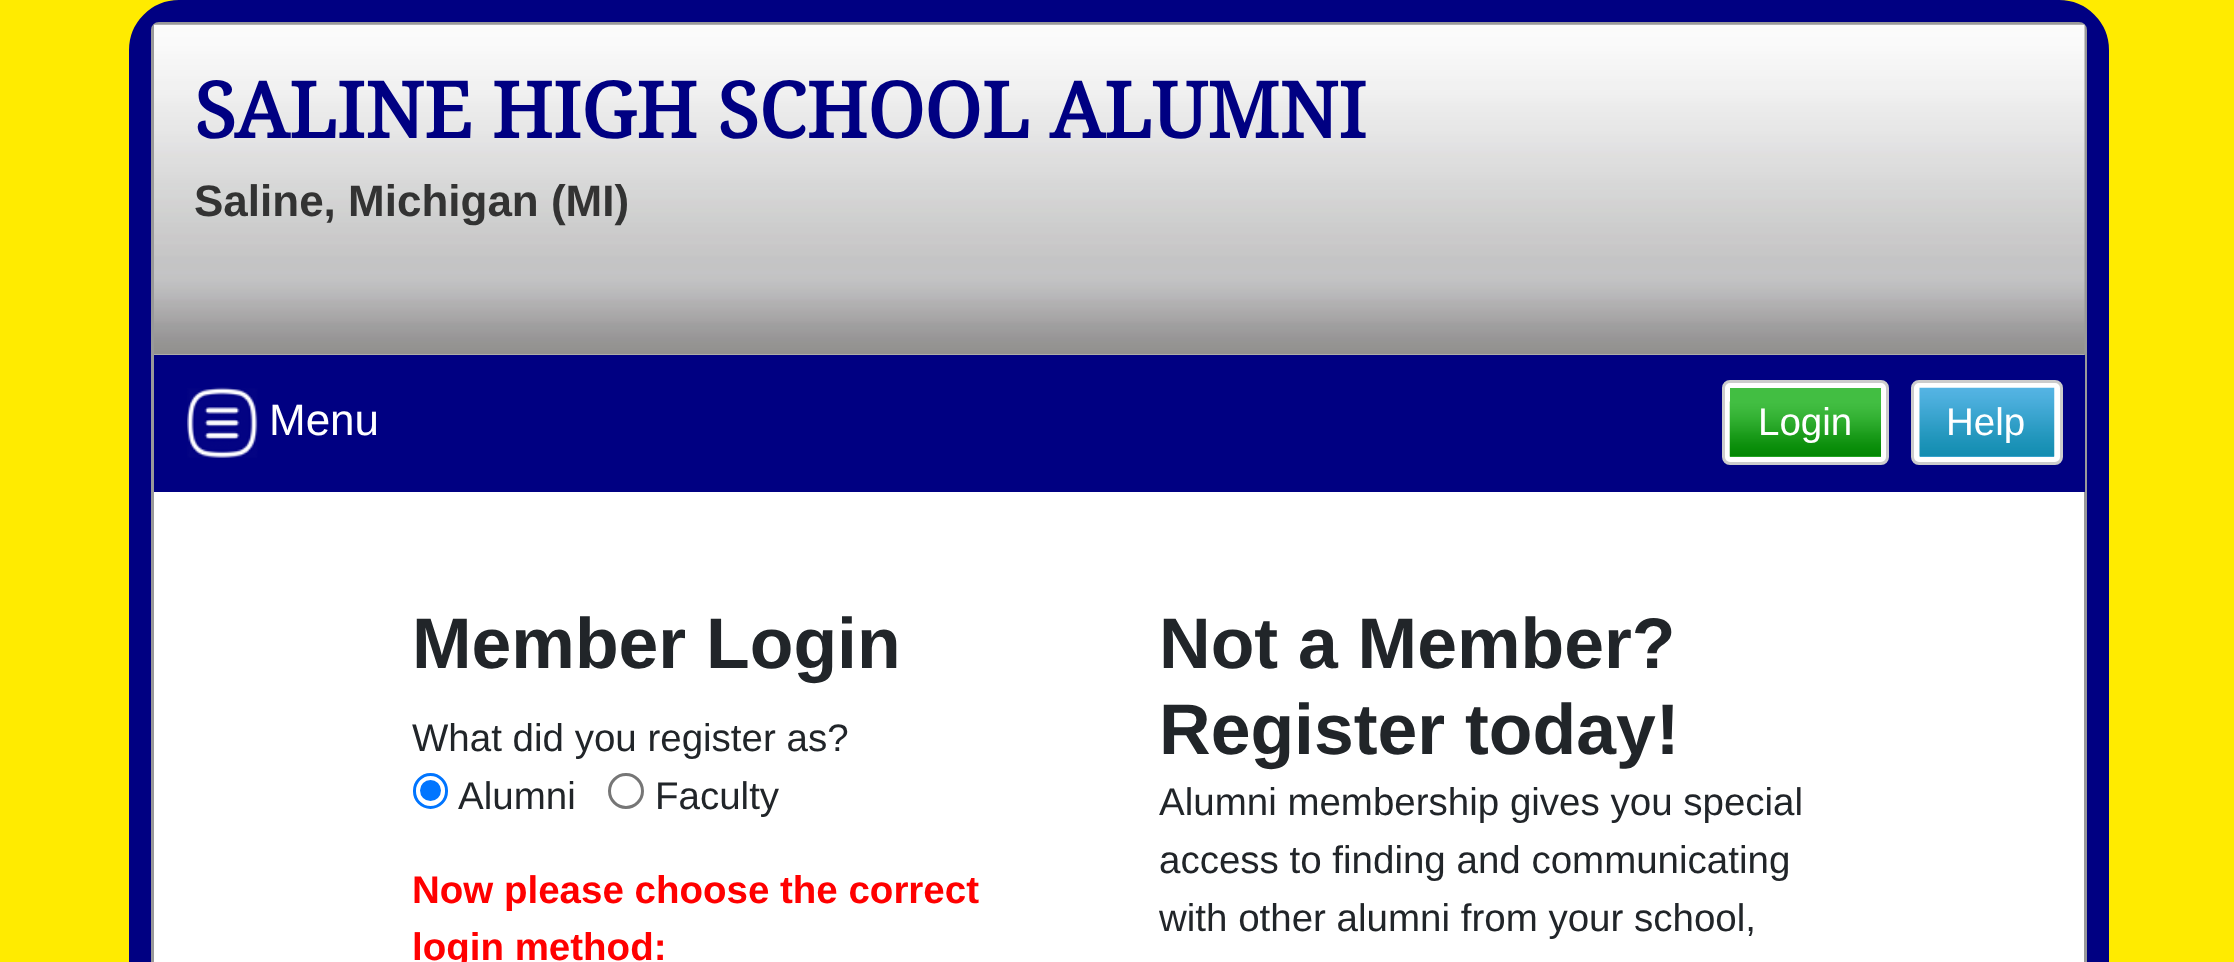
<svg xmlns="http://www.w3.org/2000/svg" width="2234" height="962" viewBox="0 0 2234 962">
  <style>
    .t1 { font: bold 77px Droid Serif; fill: #000082; }
    .t2 { font: bold 44px Liberation Sans; fill: #333; }
    .t3 { font: 44px Liberation Sans; fill: #fff; }
    .t4 { font: 38.5px Liberation Sans; fill: #fff; }
    .t5 { font: bold 71.5px Liberation Sans; fill: #212529; }
    .t6 { font: 38.5px Liberation Sans; fill: #212529; }
    .t7 { font: bold 38.5px Liberation Sans; fill: #f00; }
  </style>
  <rect width="100%" height="100%" fill="#ffeb00"/>
  <rect x="140" y="11" width="1958" height="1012" rx="39" fill="none" stroke="#000082" stroke-width="22"/>
  <rect x="152.5" y="23.5" width="1933" height="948" rx="6.5" fill="#fff" stroke="#999" stroke-width="3"/>
  <image x="154" y="24" width="1931" height="331" href="images/1.png"/>
  <text x="194" y="138" class="t1">SALINE HIGH SCHOOL ALUMNI</text>
  <text x="194" y="216" class="t2">Saline, Michigan (MI)</text>
  <rect x="154" y="355" width="1931" height="137" fill="#000082"/>
  <image x="187" y="387" width="71" height="71" href="images/2.png"/>
  <text x="269" y="435" class="t3">Menu</text>
  <rect x="1723.5" y="381.5" width="164" height="82" rx="6.5" fill="#fff" stroke="#ccc" stroke-width="3"/>
  <rect x="1730" y="388" width="151" height="69" fill="#42be42"/>
  <image x="1729" y="401" width="152" height="56" href="images/3.png"/>
  <text x="1758" y="435" class="t4">Login</text>
  <rect x="1912.5" y="381.5" width="149" height="82" rx="6.5" fill="#fff" stroke="#ccc" stroke-width="3"/>
  <rect x="1920" y="456" width="134" height="1" fill="#59b6e7"/>
  <image x="1919" y="387" width="136" height="70" href="images/4.png"/>
  <text x="1946" y="435" class="t4">Help</text>
  <text x="412" y="668" class="t5">Member Login</text>
  <text x="412" y="751" class="t6">What did you register as?</text>
  <rect x="414.5" y="774.5" width="32" height="33" rx="16" fill="none" stroke="#0075ff" stroke-width="3"/>
  <circle cx="430.5" cy="790.5" r="10.5" fill="#0075ff"/>
  <text x="458" y="809" class="t6">Alumni</text>
  <circle cx="626" cy="791" r="16.5" fill="none" stroke="#767676" stroke-width="3"/>
  <text x="655" y="809" class="t6">Faculty</text>
  <text x="412" y="903" class="t7">Now please choose the correct</text>
  <text x="412" y="960" class="t7">login method:</text>
  <text x="1159" y="668" class="t5">Not a Member?</text>
  <text x="1159" y="754" class="t5">Register today!</text>
  <text x="1159" y="815" class="t6">Alumni membership gives you special</text>
  <text x="1159" y="873" class="t6">access to finding and communicating</text>
  <text x="1159" y="931" class="t6">with other alumni from your school,</text>
</svg>
